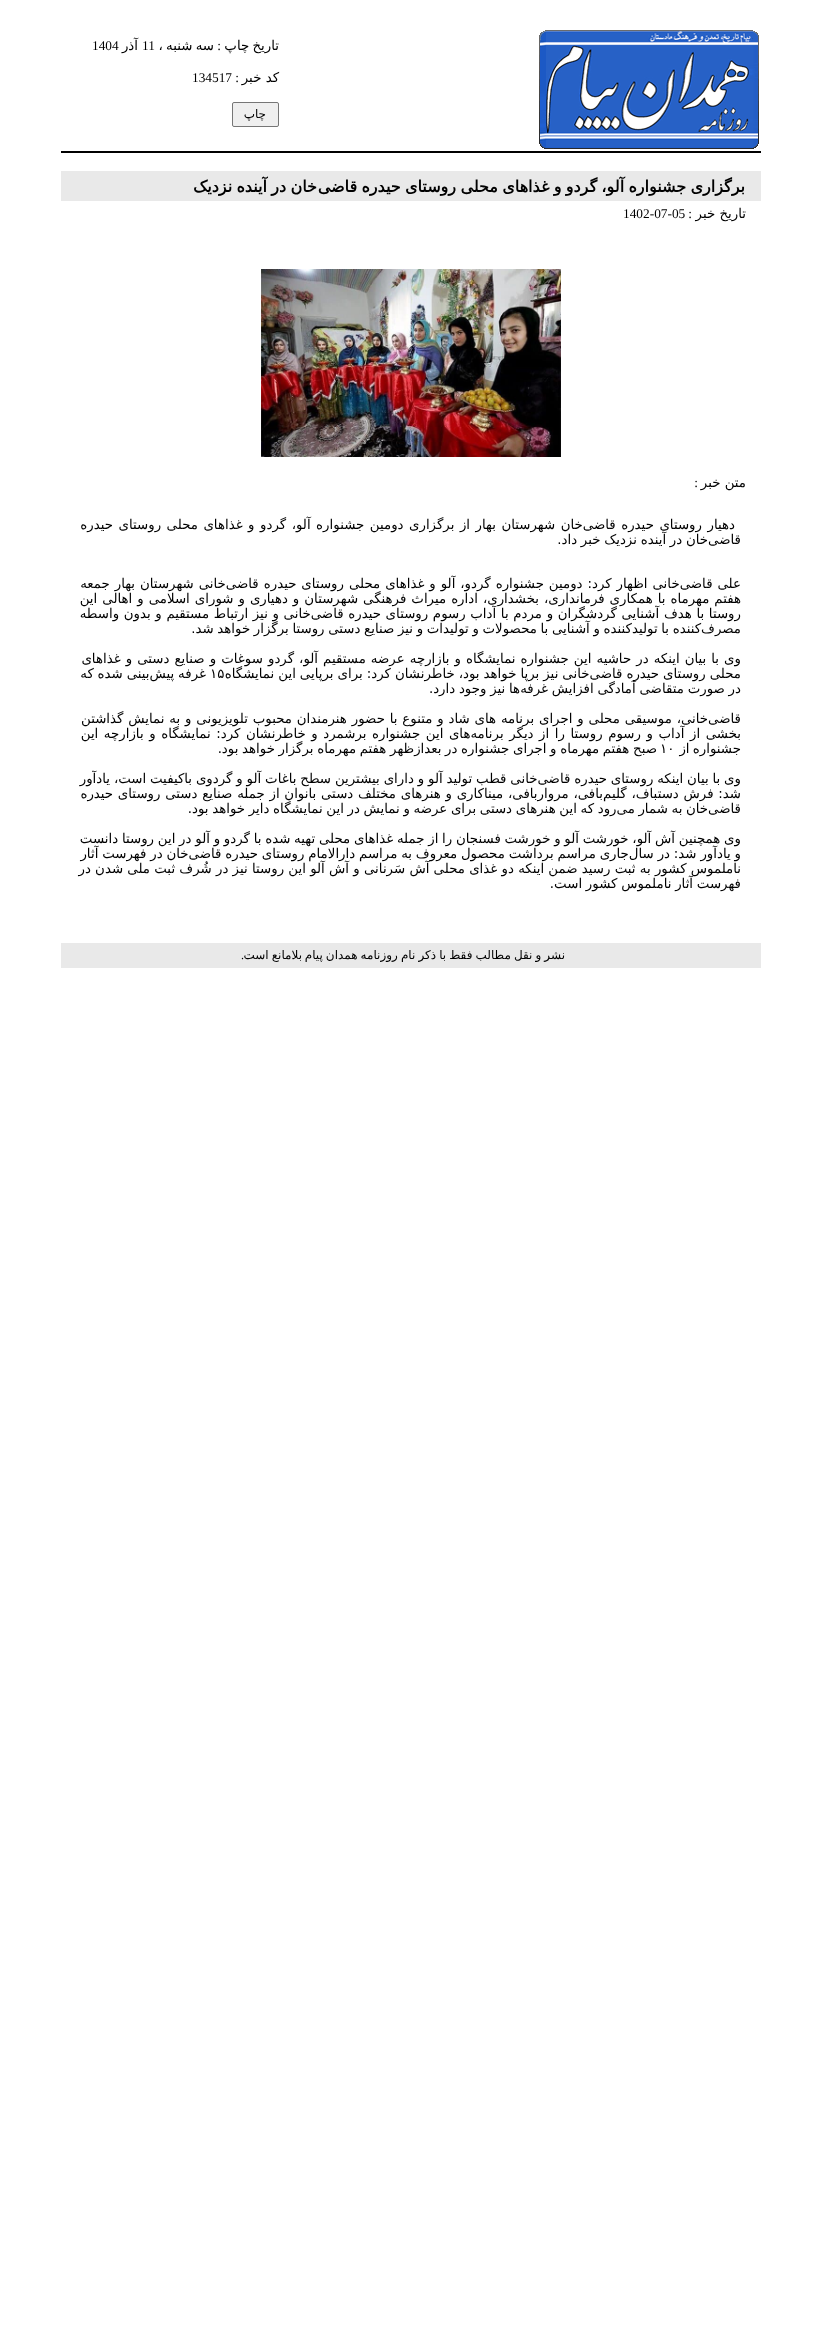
<svg xmlns="http://www.w3.org/2000/svg" width="821" height="2326" viewBox="0 0 821 2326">
  <style>
    .t1 { font: 13.35px DejaVu Sans; direction: rtl; fill: #000; }
    .t2 { font: 13.35px Liberation Serif; direction: rtl; fill: #000; }
    .t3 { font: 13.35px Liberation Serif; fill: #000; }
    .t4 { font: 12px DejaVu Sans; direction: rtl; fill: #000; }
    .t5 { font: bold 16px DejaVu Sans; direction: rtl; fill: #000; }
    .t6 { font: 13.35px DejaVu Sans; fill: #000; }
    .t7 { font: 12px Liberation Serif; direction: rtl; fill: #000; }
  </style>
  <rect width="100%" height="100%" fill="#fff"/>
  <rect x="61" y="151" width="700" height="2" fill="#000"/>
  <image x="539" y="30" width="220" height="119" href="images/1.png"/>
  <text x="279" y="50" word-spacing="-1" class="t1">تاریخ چاپ</text>
  <text x="221" y="50" class="t2">:</text>
  <text x="214" y="50" word-spacing="-1" class="t1">سه شنبه ،</text>
  <text x="142" y="50" class="t3">11</text>
  <text x="138" y="50" class="t1">آذر</text>
  <text x="92" y="50" class="t3">1404</text>
  <text x="279" y="82" class="t1">کد خبر</text>
  <text x="239" y="82" class="t2">:</text>
  <text x="192" y="82" class="t3">134517</text>
  <rect x="232.5" y="102.5" width="46" height="24" rx="1.5" fill="#efefef" stroke="#767676"/>
  <text x="266" y="118" class="t4">چاپ</text>
  <rect x="61" y="171" width="700" height="30" fill="#e9e9e9"/>
  <text x="745" y="192" word-spacing="-0.75" class="t5">برگزاری جشنواره آلو، گردو و غذاهای محلی روستای حیدره قاضی</text>
  <text x="317" y="192" word-spacing="-0.75" class="t5">خان در آینده نزدیک</text>
  <text x="746" y="218" class="t1">تاریخ خبر</text>
  <text x="692" y="218" class="t2">:</text>
  <text x="623" y="218" class="t3">1402-07-05</text>
  <image x="261" y="269" width="300" height="188" href="images/2.png"/>
  <text x="746" y="487" class="t1">متن خبر</text>
  <text x="698" y="487" class="t2">:</text>
  <text x="735" y="529" word-spacing="1.25" class="t1">دهیار روستای حیدره قاضی‌خان شهرستان بهار از برگزاری دومین جشنواره آلو، گردو و غذاهای محلی روستای حیدره‌</text>
  <text x="741" y="544" word-spacing="-0.5" class="t1">قاضی‌خان در آینده نزدیک خبر داد.</text>
  <text x="741" y="588" word-spacing="0.7" class="t1">علی قاضی‌خانی اظهار کرد: دومین جشنواره گردو، آلو و غذاهای محلی روستای حیدره قاضی‌خانی شهرستان بهار جمعه</text>
  <text x="741" y="603" word-spacing="0.75" class="t1">هفتم مهرماه با همکاری فرمانداری، بخشداری، اداره میراث فرهنگی شهرستان و دهیاری و شورای اسلامی و اهالی این</text>
  <text x="741" y="618" word-spacing="0.4" class="t1">روستا با هدف آشنایی گردشگران و مردم با آداب رسوم روستای حیدره قاضی‌خانی و نیز ارتباط مستقیم و بدون واسطه</text>
  <text x="741" y="633" word-spacing="-0.6" class="t1">مصرف‌کننده با تولیدکننده و آشنایی با محصولات و تولیدات و نیز صنایع دستی روستا برگزار خواهد شد.</text>
  <text x="741" y="663" word-spacing="0.8" class="t1">وی با بیان اینکه در حاشیه این جشنواره نمایشگاه و بازارچه عرضه مستقیم آلو، گردو سوغات و صنایع دستی و غذاهای</text>
  <text x="741" y="678" word-spacing="-0.25" class="t1">محلی روستای حیدره قاضی‌خانی نیز برپا خواهد بود، خاطرنشان کرد: برای برپایی این نمایشگاه</text>
  <text x="210" y="678" class="t6">۱۵</text>
  <text x="206" y="678" word-spacing="-0.4" class="t1">غرفه پیش‌بینی شده که</text>
  <text x="741" y="693" word-spacing="-0.5" class="t1">در صورت متقاضی آمادگی افزایش غرفه‌ها نیز وجود دارد.</text>
  <text x="741" y="723" word-spacing="0.6" class="t1">قاضی‌خانی، موسیقی محلی و اجرای برنامه ‌های شاد و متنوع با حضور هنرمندان محبوب تلویزیونی و به نمایش گذاشتن</text>
  <text x="741" y="738" word-spacing="1.3" class="t1">بخشی از آداب و رسوم روستا را از دیگر برنامه‌های این جشنواره برشمرد و خاطرنشان کرد: نمایشگاه و بازارچه این</text>
  <text x="741" y="753" word-spacing="-1" class="t1">جشنواره از</text>
  <text x="657" y="753" word-spacing="-0.6" class="t1">صبح هفتم مهرماه و اجرای جشنواره در بعدازظهر هفتم مهرماه برگزار خواهد بود.</text>
  <text x="660" y="753" class="t6">۱۰</text>
  <text x="741" y="783" word-spacing="-0.4" class="t1">وی با بیان اینکه روستای حیدره قاضی‌خانی قطب تولید آلو و دارای بیشترین سطح باغات آلو و گردوی باکیفیت است، یادآور</text>
  <text x="741" y="798" word-spacing="0.5" class="t1">شد: فرش دستباف، گلیم‌بافی، مرواربافی، میناکاری و هنرهای مختلف دستی بانوان از جمله صنایع دستی روستای حیدره</text>
  <text x="741" y="813" word-spacing="-0.6" class="t1">قاضی‌خان به شمار می‌رود که این هنرهای دستی برای عرضه و نمایش در این نمایشگاه دایر خواهد بود.</text>
  <text x="741" y="843" word-spacing="-0.5" class="t1">وی همچنین آش آلو، خورشت آلو و خورشت فسنجان را از جمله غذاهای محلی تهیه شده با گردو و آلو در این روستا دانست</text>
  <text x="741" y="858" word-spacing="-0.4" class="t1">و یادآور شد: در سال‌جاری مراسم برداشت محصول معروف به مراسم دارالامام روستای حیدره قاضی‌خان در فهرست آثار</text>
  <text x="741" y="873" class="t1">ناملموس کشور به ثبت رسید ضمن اینکه دو غذای محلی آش سَرنانی‌ و آش آلو این روستا نیز در شُرف ثبت ملی شدن در</text>
  <text x="741" y="888" word-spacing="-0.5" class="t1">فهرست آثار ناملموس کشور است.</text>
  <rect x="61" y="943" width="700" height="25" fill="#e9e9e9"/>
  <text x="565" y="959" word-spacing="-0.75" class="t4">نشر و نقل مطالب فقط با ذکر نام روزنامه همدان پیام</text>
  <text x="302" y="959" word-spacing="-0.75" class="t4">بلامانع است</text>
  <text x="244" y="959" class="t7">.</text>
</svg>
